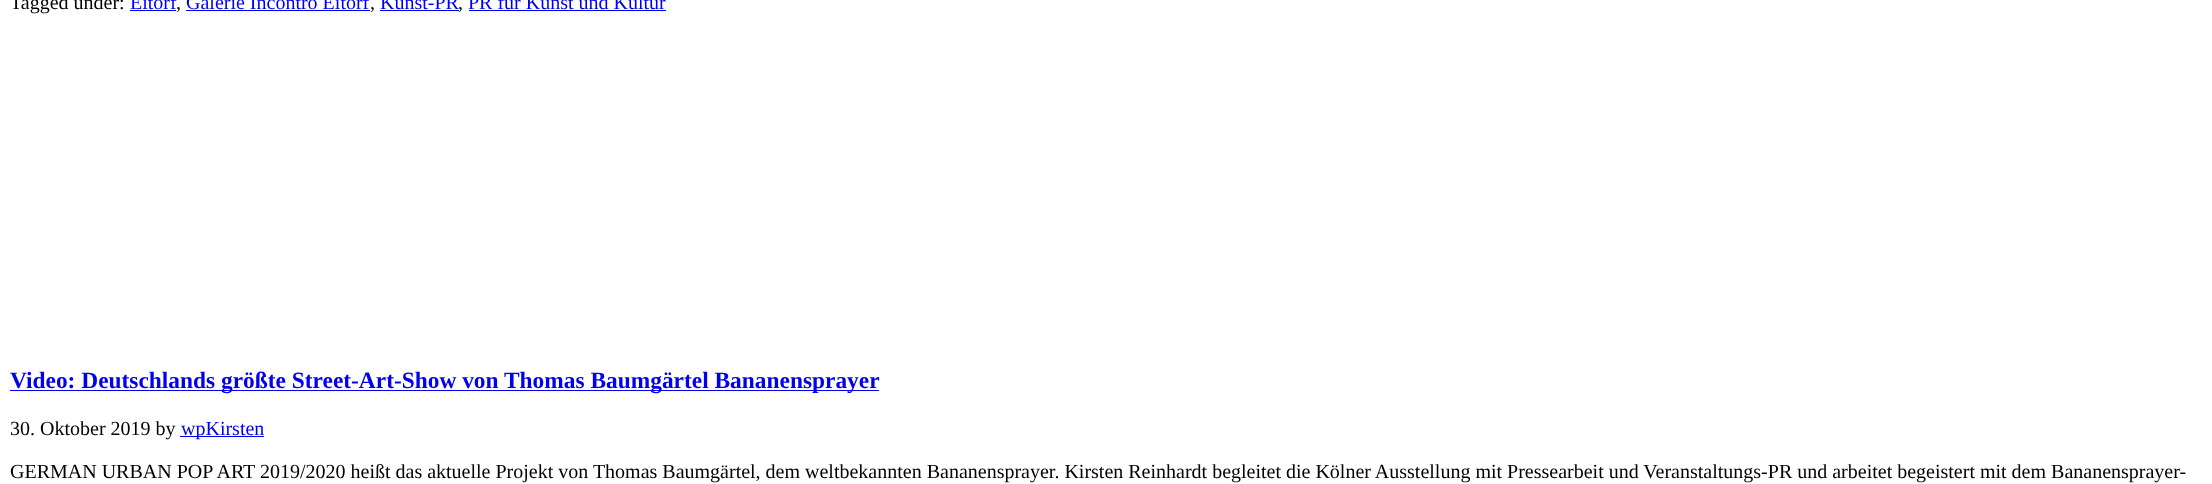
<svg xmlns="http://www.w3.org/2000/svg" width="2212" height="484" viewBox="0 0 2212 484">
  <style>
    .t1 { font: 20px Liberation Serif; fill: #000; }
    .t2 { font: 20px Liberation Serif; fill: #00e; }
    .t3 { font: bold 23.4px Liberation Serif; fill: #00e; }
  </style>
  <rect width="100%" height="100%" fill="#fff"/>
  <text x="10" y="9" class="t1">Tagged under:</text>
  <text x="130" y="9" class="t2">Eitorf</text>
  <rect x="130" y="10" width="46" height="1" fill="#00e"/>
  <text x="176" y="9" class="t1">,</text>
  <text x="186" y="9" class="t2">Galerie Incontro Eitorf</text>
  <rect x="186" y="10" width="184" height="1" fill="#00e"/>
  <text x="370" y="9" class="t1">,</text>
  <text x="380" y="9" class="t2">Kunst-PR</text>
  <rect x="380" y="10" width="79" height="1" fill="#00e"/>
  <text x="458" y="9" class="t1">,</text>
  <text x="468" y="9" class="t2">PR für Kunst und Kultur</text>
  <rect x="469" y="10" width="197" height="1" fill="#00e"/>
  <rect x="10" y="390" width="869" height="1" fill="#00e"/>
  <text x="10" y="388" class="t3">Video: Deutschlands größte Street-Art-Show von Thomas Baumgärtel Bananensprayer</text>
  <text x="10" y="435" class="t1">30. Oktober 2019 by</text>
  <rect x="180" y="436" width="84" height="1" fill="#00e"/>
  <text x="181" y="435" class="t2">wpKirsten</text>
  <text x="10" y="478" class="t1">GERMAN URBAN POP ART 2019/2020 heißt das aktuelle Projekt von Thomas Baumgärtel, dem weltbekannten Bananensprayer. Kirsten Reinhardt begleitet die Kölner Ausstellung mit Pressearbeit und Veranstaltungs-PR und arbeitet begeistert mit dem Bananensprayer-</text>
</svg>
